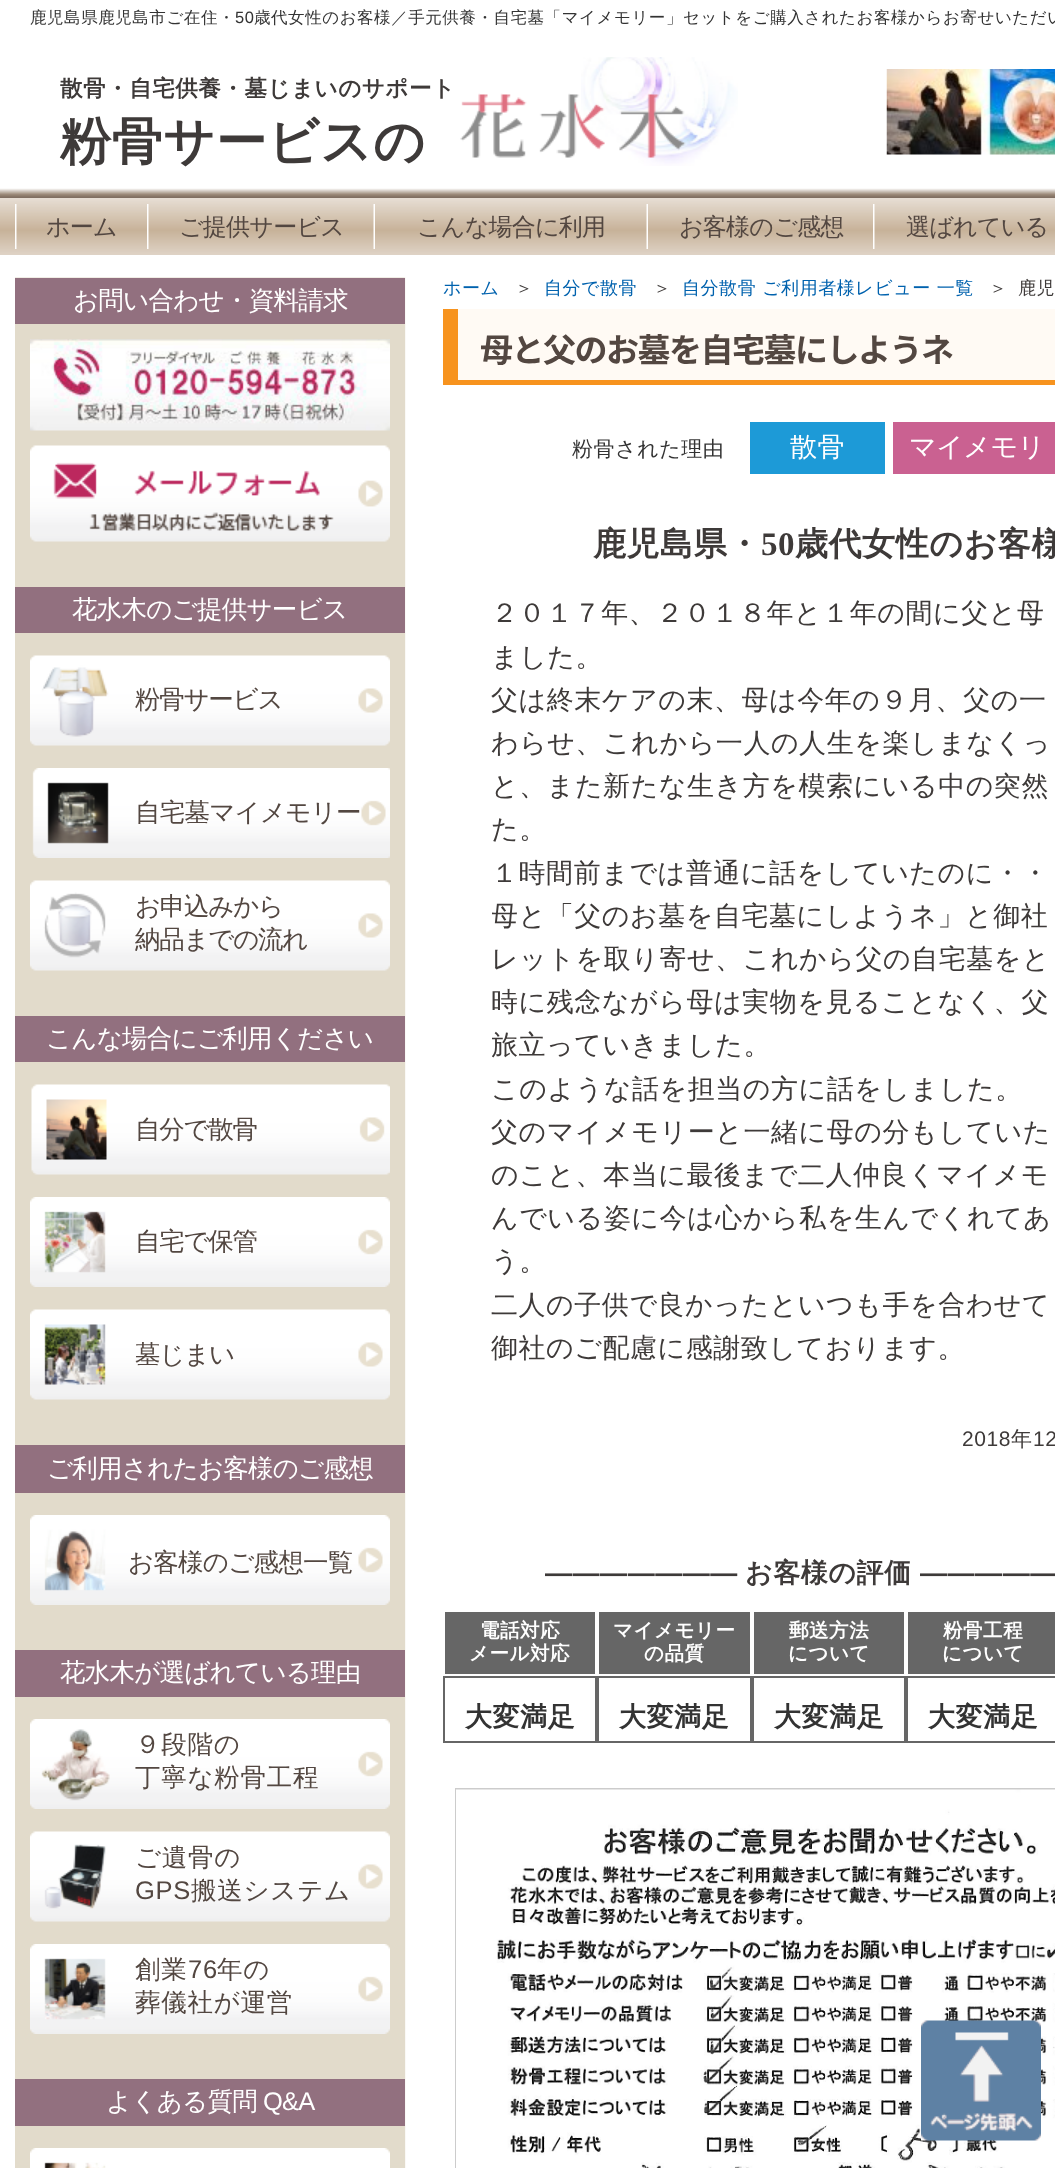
<svg xmlns="http://www.w3.org/2000/svg" width="1055" height="2168" viewBox="0 0 1055 2168">
  <style>
    .t1 { font: 500 16.5px WenQuanYi Zen Hei; letter-spacing: 0.55px; fill: #333; }
    .t2 { font: 16.5px Liberation Sans; letter-spacing: 0.55px; fill: #333; }
    .t3 { font: bold 22.5px WenQuanYi Zen Hei; letter-spacing: 0.55px; fill: #3e3a39; }
    .t4 { font: bold 51px WenQuanYi Zen Hei; letter-spacing: 0.55px; fill: #3e3a39; }
    .t5 { font: 500 24px WenQuanYi Zen Hei; letter-spacing: -0.75px; fill: #534741; }
    .t6 { font: 500 25.5px WenQuanYi Zen Hei; letter-spacing: -0.75px; fill: #fff; }
    .t7 { font: 500 25.5px WenQuanYi Zen Hei; letter-spacing: -1.25px; fill: #534741; }
    .t8 { font: 500 25.5px WenQuanYi Zen Hei; letter-spacing: -0.75px; fill: #534741; }
    .t9 { font: 500 25.5px WenQuanYi Zen Hei; letter-spacing: 0.75px; fill: #534741; }
    .t10 { font: 25.5px Liberation Sans; letter-spacing: 0.75px; fill: #534741; }
    .t11 { font: 25.5px Liberation Sans; letter-spacing: -0.75px; fill: #fff; }
    .t12 { font: 500 18px WenQuanYi Zen Hei; letter-spacing: 0.55px; fill: #0062ae; }
    .t13 { font: 500 18px WenQuanYi Zen Hei; letter-spacing: 0.55px; fill: #3e3a39; }
    .t14 { font: bold 33px Noto Sans JP; letter-spacing: -1.5px; fill: #534741; }
    .t15 { font: 500 21px WenQuanYi Zen Hei; letter-spacing: 0.55px; fill: #333; }
    .t16 { font: 500 27px WenQuanYi Zen Hei; letter-spacing: 0.55px; fill: #fff; }
    .t17 { font: 500 27px WenQuanYi Zen Hei; letter-spacing: -0.5px; fill: #fff; }
    .t18 { font: bold 33px WenQuanYi Zen Hei; letter-spacing: 0.55px; fill: #3e3a39; }
    .t19 { font: bold 33px Liberation Serif; letter-spacing: 0.55px; fill: #3e3a39; }
    .t20 { font: 500 27px WenQuanYi Zen Hei; letter-spacing: 0.55px; fill: #3e3a39; }
    .t21 { font: 21px Liberation Sans; letter-spacing: 0.55px; fill: #3e3a39; }
    .t22 { font: 500 21px WenQuanYi Zen Hei; letter-spacing: 0.55px; fill: #3e3a39; }
    .t23 { font: bold 27px Liberation Sans; letter-spacing: 0.55px; fill: #3e3a39; }
    .t24 { font: bold 27px WenQuanYi Zen Hei; letter-spacing: 0.55px; fill: #3e3a39; }
    .t25 { font: bold 19.5px WenQuanYi Zen Hei; letter-spacing: 0.55px; fill: #fff; }
    .t26 { font: bold 27px WenQuanYi Zen Hei; letter-spacing: 0.55px; fill: #333; }
  </style>
  <defs>
    <clipPath id="clip1"><rect x="492" y="593" width="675" height="886"/></clipPath>
  </defs>
  <rect width="100%" height="100%" fill="#fff"/>
  <text x="30" y="23" class="t1">鹿児島県鹿児島市ご在住・</text>
  <text x="235" y="23" class="t2">50</text>
  <text x="254" y="23" class="t1">歳代女性のお客様／手元供養・自宅墓「マイメモリー」セットをご購入されたお客様からお寄せいただい</text>
  <image x="581" y="57" width="157" height="109" href="images/1.png"/>
  <text x="60" y="96" class="t3">散骨・自宅供養・墓じまいのサポート</text>
  <text x="60" y="159" class="t4">粉骨サービスの</text>
  <image x="460" y="93" width="226" height="65" href="images/2.png"/>
  <image x="886" y="69" width="169" height="86" href="images/3.png"/>
  <image x="0" y="188" width="1055" height="10" href="images/4.png"/>
  <image x="0" y="198" width="1055" height="57" href="images/5.png"/>
  <image x="15" y="204" width="2" height="45" href="images/6.png"/>
  <image x="147" y="204" width="2" height="45" href="images/6.png"/>
  <text x="46" y="235" class="t5">ホーム</text>
  <image x="373" y="204" width="2" height="45" href="images/7.png"/>
  <text x="179" y="235" class="t5">ご提供サービス</text>
  <image x="646" y="204" width="2" height="45" href="images/8.png"/>
  <text x="417" y="235" class="t5">こんな場合に利用</text>
  <image x="873" y="204" width="2" height="45" href="images/6.png"/>
  <text x="679" y="235" class="t5">お客様のご感想</text>
  <text x="906" y="235" class="t5">選ばれている</text>
  <image x="15" y="277" width="391" height="1891" href="images/9.png"/>
  <rect x="404" y="324" width="1" height="1844" fill="#e2dbcb"/>
  <rect x="15" y="278" width="390" height="46" fill="#92707f"/>
  <text x="73" y="309" class="t6">お問い合わせ・資料請求</text>
  <image x="30" y="339" width="360" height="92" href="images/10.png"/>
  <image x="30" y="445" width="360" height="97" href="images/11.png"/>
  <rect x="15" y="587" width="390" height="46" fill="#92707f"/>
  <text x="72" y="618" class="t6">花水木のご提供サービス</text>
  <image x="30" y="655" width="360" height="91" href="images/12.png"/>
  <text x="135" y="708" class="t7">粉骨サービス</text>
  <image x="32" y="768" width="358" height="90" href="images/13.png"/>
  <text x="135" y="821" class="t8">自宅墓マイメモリー</text>
  <image x="30" y="880" width="360" height="91" href="images/14.png"/>
  <text x="135" y="915" class="t7">お申込みから</text>
  <text x="135" y="948" class="t7">納品までの流れ</text>
  <rect x="15" y="1016" width="390" height="46" fill="#92707f"/>
  <text x="46" y="1047" class="t6">こんな場合にご利用ください</text>
  <image x="31" y="1084" width="359" height="91" href="images/15.png"/>
  <text x="135" y="1138" class="t7">自分で散骨</text>
  <image x="30" y="1197" width="360" height="90" href="images/16.png"/>
  <text x="135" y="1250" class="t7">自宅で保管</text>
  <image x="30" y="1309" width="360" height="91" href="images/17.png"/>
  <text x="135" y="1363" class="t7">墓じまい</text>
  <rect x="15" y="1445" width="390" height="48" fill="#92707f"/>
  <text x="47" y="1477" class="t6">ご利用されたお客様のご感想</text>
  <image x="30" y="1515" width="360" height="90" href="images/18.png"/>
  <text x="128" y="1571" class="t8">お客様のご感想一覧</text>
  <rect x="15" y="1650" width="390" height="47" fill="#92707f"/>
  <text x="60" y="1681" class="t6">花水木が選ばれている理由</text>
  <image x="30" y="1719" width="360" height="90" href="images/19.png"/>
  <text x="135" y="1753" class="t9">９段階の</text>
  <text x="135" y="1786" class="t9">丁寧な粉骨工程</text>
  <image x="30" y="1831" width="360" height="91" href="images/20.png"/>
  <text x="135" y="1866" class="t9">ご遺骨の</text>
  <text x="135" y="1899" class="t10">GPS</text>
  <text x="191" y="1899" class="t9">搬送システム</text>
  <image x="30" y="1944" width="360" height="90" href="images/21.png"/>
  <text x="135" y="1978" class="t9">創業</text>
  <text x="188" y="1978" class="t10">76</text>
  <text x="217" y="1978" class="t9">年の</text>
  <text x="135" y="2011" class="t9">葬儀社が運営</text>
  <rect x="15" y="2079" width="390" height="47" fill="#92707f"/>
  <text x="106" y="2110" class="t6">よくある質問</text>
  <text x="263" y="2110" class="t11">Q&amp;A</text>
  <image x="30" y="2148" width="360" height="20" href="images/22.png"/>
  <text x="443" y="294" class="t12">ホーム</text>
  <text x="515" y="294" class="t13">＞</text>
  <text x="544" y="294" class="t12">自分で散骨</text>
  <text x="653" y="294" class="t13">＞</text>
  <text x="682" y="294" class="t12">自分散骨 ご利用者様レビュー 一覧</text>
  <text x="989" y="294" class="t13">＞</text>
  <text x="1018" y="294" class="t13">鹿児</text>
  <rect x="458" y="309" width="597" height="71" fill="#fffaf4"/>
  <rect x="443" y="380" width="612" height="5" fill="#f7931e"/>
  <rect x="443" y="309" width="15" height="71" fill="#f7931e"/>
  <text x="480" y="362" class="t14">母と父のお墓を自宅墓にしようネ</text>
  <text x="572" y="456" class="t15">粉骨された理由</text>
  <rect x="750" y="422" width="135" height="52" fill="#1d9ad7"/>
  <text x="790" y="456" class="t16">散骨</text>
  <rect x="893" y="422" width="162" height="52" fill="#ca6191"/>
  <text x="909" y="456" class="t17">マイメモリ</text>
  <text x="593" y="555" class="t18">鹿児島県・</text>
  <text x="761" y="555" class="t19">50</text>
  <text x="795" y="555" class="t18">歳代女性のお客様</text>
  <text x="491" y="622" class="t20">２０１７年、２０１８年と１年の間に父と母</text>
  <text x="491" y="666" class="t20">ました。</text>
  <text x="491" y="709" class="t20">父は終末ケアの末、母は今年の９月、父の一</text>
  <text x="491" y="752" class="t20">わらせ、これから一人の人生を楽しまなくっ</text>
  <text x="491" y="795" class="t20">と、また新たな生き方を模索にいる中の突然</text>
  <text x="491" y="838" class="t20">た。</text>
  <text x="491" y="882" class="t20">１時間前までは普通に話をしていたのに・・</text>
  <g clip-path="url(#clip1)">
    <text x="491" y="925" class="t20">母と「父のお墓を自宅墓にしようネ」と御社</text>
  </g>
  <text x="491" y="968" class="t20">レットを取り寄せ、これから父の自宅墓をと</text>
  <text x="491" y="1011" class="t20">時に残念ながら母は実物を見ることなく、父</text>
  <g clip-path="url(#clip1)">
    <text x="491" y="1054" class="t20">旅立っていきました。</text>
  </g>
  <text x="491" y="1098" class="t20">このような話を担当の方に話をしました。</text>
  <text x="491" y="1141" class="t20">父のマイメモリーと一緒に母の分もしていた</text>
  <text x="491" y="1184" class="t20">のこと、本当に最後まで二人仲良くマイメモ</text>
  <text x="491" y="1227" class="t20">んでいる姿に今は心から私を生んでくれてあ</text>
  <text x="491" y="1270" class="t20">う。</text>
  <text x="491" y="1314" class="t20">二人の子供で良かったといつも手を合わせて</text>
  <text x="491" y="1357" class="t20">御社のご配慮に感謝致しております。</text>
  <text x="962" y="1446" class="t21">2018</text>
  <text x="1011" y="1446" class="t22">年</text>
  <text x="1033" y="1446" class="t21">12</text>
  <text x="545" y="1582" class="t23">―――――――</text>
  <text x="745" y="1582" class="t24">お客様の評価</text>
  <text x="920" y="1582" class="t23">―――――</text>
  <rect x="445" y="1612" width="150" height="62" fill="#666"/>
  <text x="480" y="1637" class="t25">電話対応</text>
  <text x="469" y="1660" class="t25">メール対応</text>
  <rect x="444" y="1677" width="152" height="65" fill="none" stroke="#666" stroke-width="2"/>
  <text x="465" y="1726" class="t26">大変満足</text>
  <rect x="599" y="1612" width="151" height="62" fill="#666"/>
  <text x="613" y="1637" class="t25">マイメモリー</text>
  <text x="644" y="1660" class="t25">の品質</text>
  <rect x="598" y="1677" width="153" height="65" fill="none" stroke="#666" stroke-width="2"/>
  <text x="619" y="1726" class="t26">大変満足</text>
  <rect x="754" y="1612" width="150" height="62" fill="#666"/>
  <text x="789" y="1637" class="t25">郵送方法</text>
  <text x="788" y="1660" class="t25">について</text>
  <rect x="753" y="1677" width="152" height="65" fill="none" stroke="#666" stroke-width="2"/>
  <text x="774" y="1726" class="t26">大変満足</text>
  <rect x="908" y="1612" width="147" height="62" fill="#666"/>
  <text x="943" y="1637" class="t25">粉骨工程</text>
  <text x="942" y="1660" class="t25">について</text>
  <rect x="907" y="1677" width="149" height="65" fill="none" stroke="#666" stroke-width="2"/>
  <text x="928" y="1726" class="t26">大変満足</text>
  <rect x="456" y="1789" width="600" height="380" fill="none" stroke="#ccc" stroke-width="2"/>
  <image x="456" y="1789" width="599" height="379" href="images/23.png"/>
  <image x="921" y="2020" width="120" height="121" href="images/24.png"/>
</svg>
